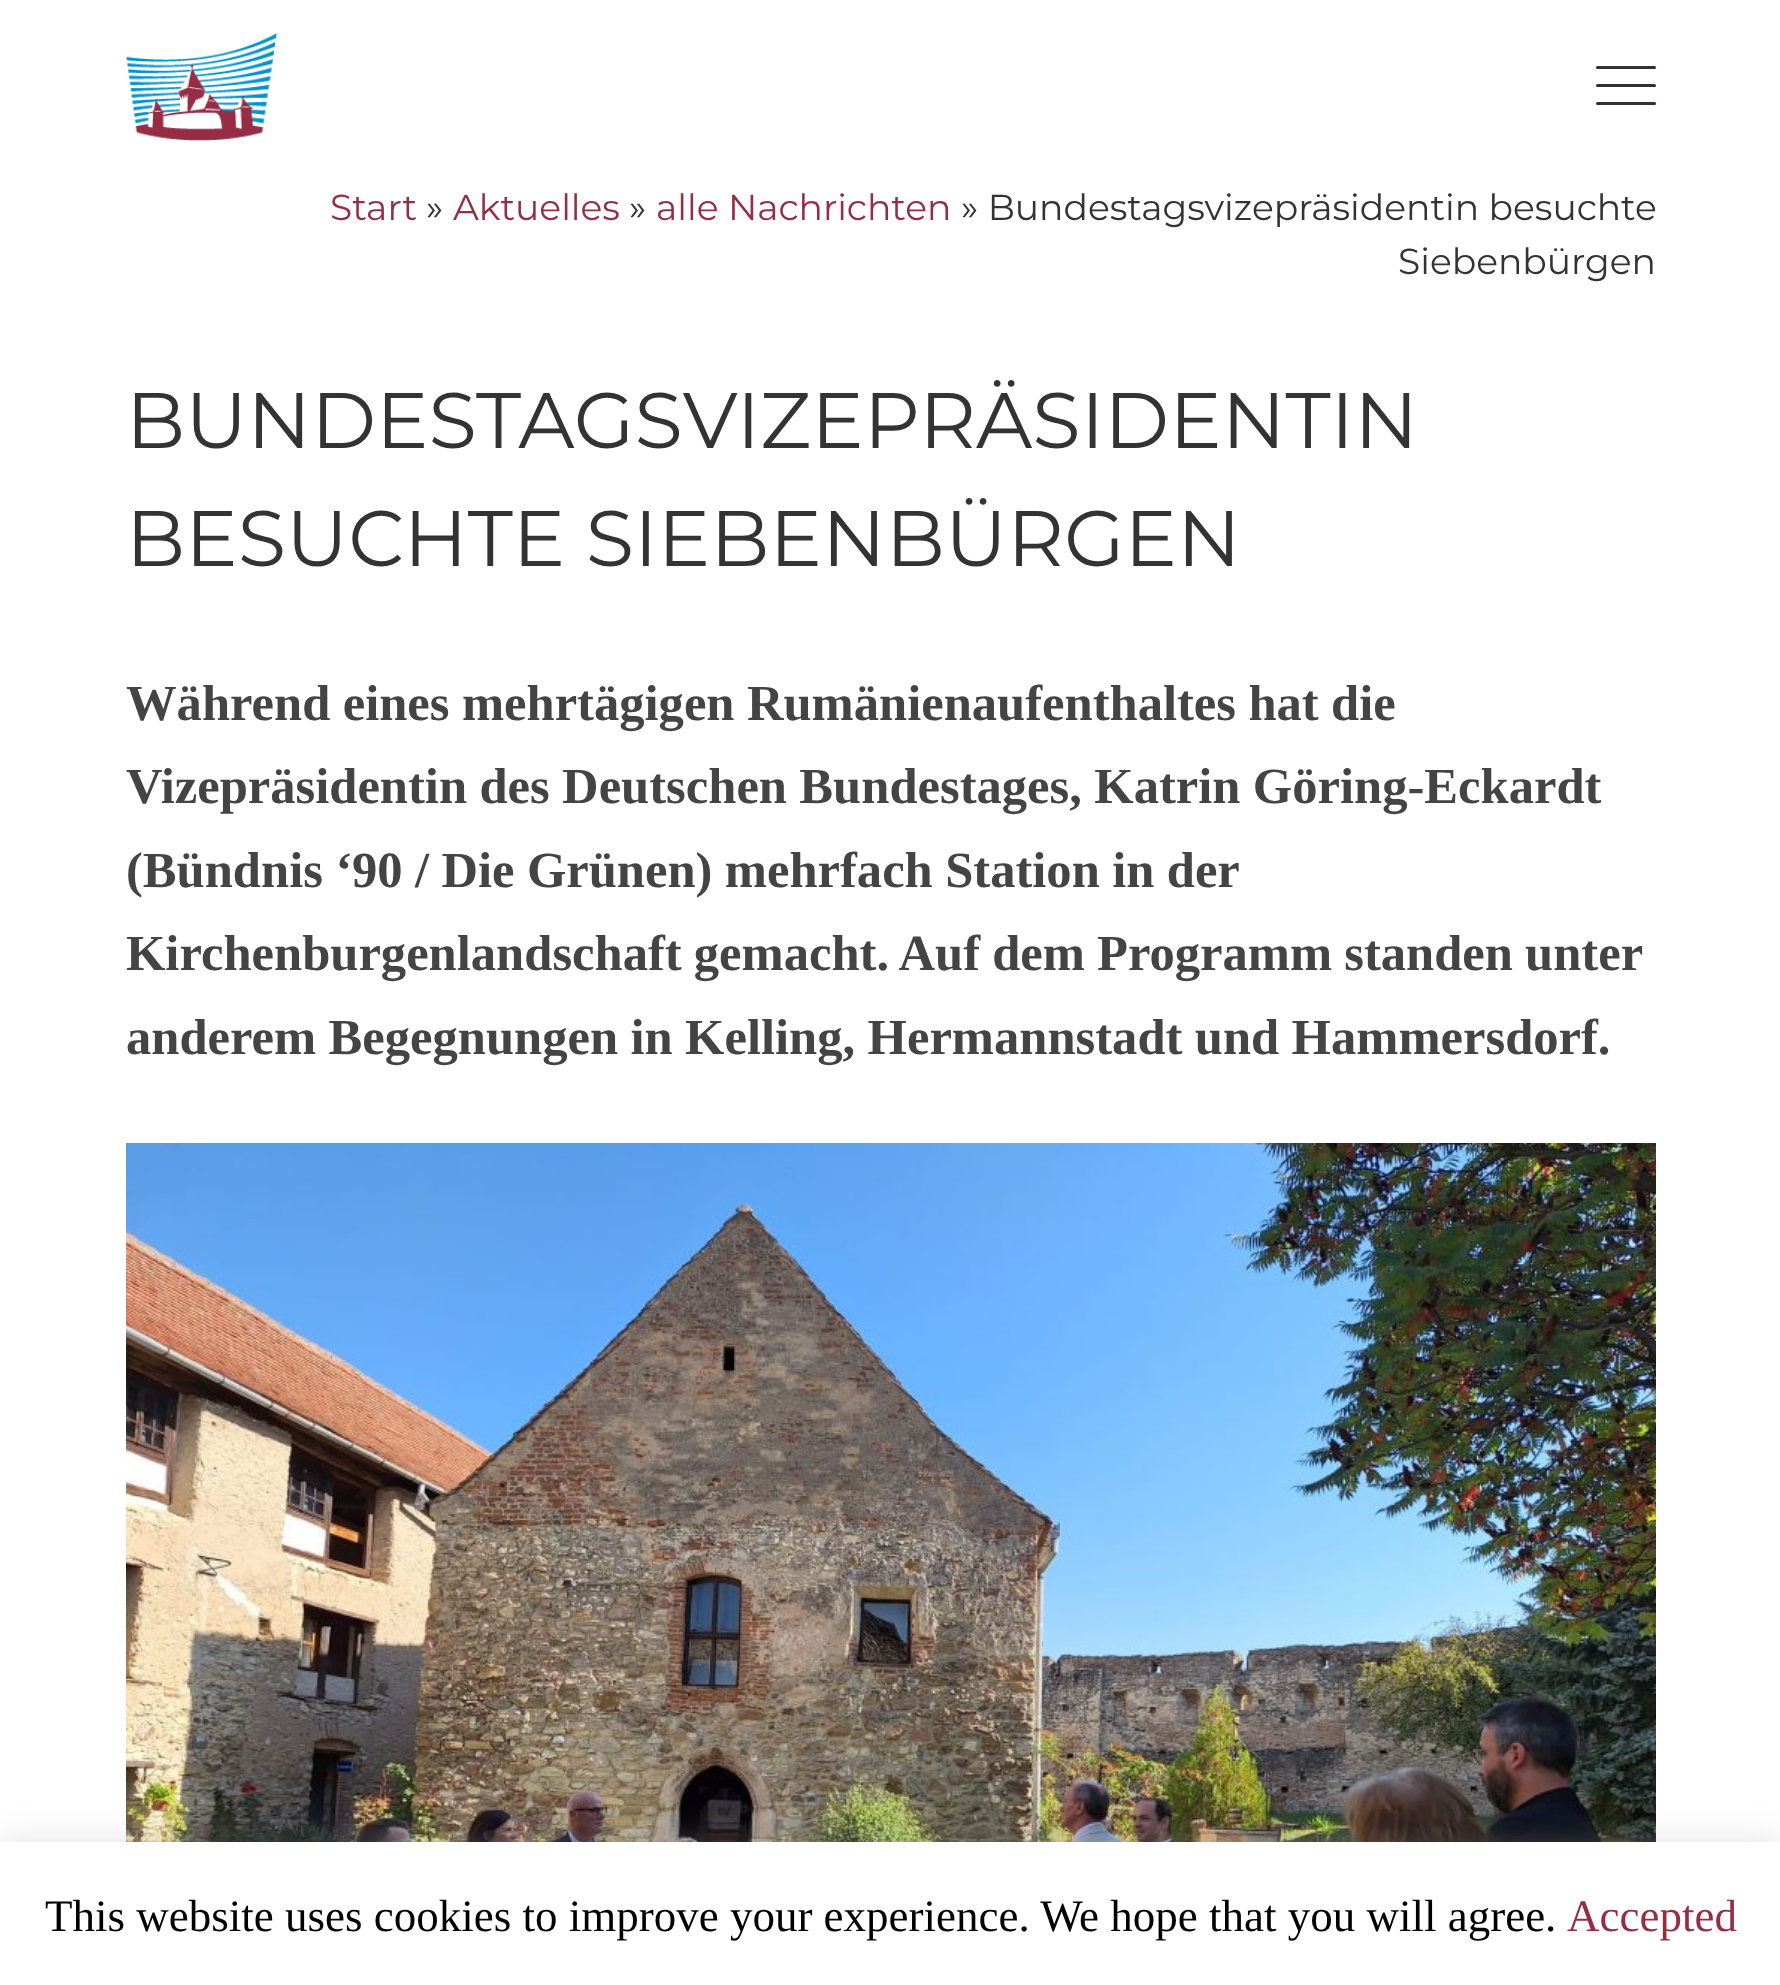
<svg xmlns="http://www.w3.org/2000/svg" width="1780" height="1985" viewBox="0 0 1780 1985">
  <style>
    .t1 { font: 100 36.1px Montserrat; fill: #962d45; }
    .t2 { font: 100 36.1px Montserrat; fill: #333; }
    .t3 { font: 100 78.5px Montserrat; fill: #333; }
    .t4 { font: bold 50.6px Liberation Serif; fill: #444; }
    .t5 { font: 45px Liberation Serif; fill: #000; }
    .t6 { font: 45px Liberation Serif; fill: #962d45; }
  </style>
  <rect width="100%" height="100%" fill="#fff"/>
  <image x="126" y="33" width="152" height="108" href="images/1.png"/>
  <rect x="1596" y="66" width="60" height="3" rx="1.5" fill="#313131"/>
  <rect x="1596" y="84" width="60" height="3" rx="1.5" fill="#313131"/>
  <rect x="1596" y="102" width="60" height="3" rx="1.5" fill="#313131"/>
  <text x="330" y="220" class="t1">Start</text>
  <text x="426" y="220" class="t2">»</text>
  <text x="453" y="220" class="t1">Aktuelles</text>
  <text x="629" y="220" class="t2">»</text>
  <text x="656" y="220" class="t1">alle Nachrichten</text>
  <text x="961" y="220" class="t2">» Bundestagsvizepräsidentin besuchte</text>
  <text x="1398" y="274" class="t2">Siebenbürgen</text>
  <text x="126" y="448" class="t3">BUNDESTAGSVIZEPRÄSIDENTIN</text>
  <text x="126" y="566" class="t3">BESUCHTE SIEBENBÜRGEN</text>
  <text x="126" y="720" word-spacing="-0.25" class="t4">Während eines mehrtägigen Rumänienaufenthaltes hat die</text>
  <text x="126" y="803" word-spacing="-0.25" class="t4">Vizepräsidentin des Deutschen Bundestages, Katrin Göring-Eckardt</text>
  <text x="126" y="887" class="t4">(Bündnis ‘</text>
  <text x="352" y="887" word-spacing="-0.25" class="t4">90 / Die Grünen) mehrfach Station in der</text>
  <text x="126" y="970" word-spacing="-0.5" class="t4">Kirchenburgenlandschaft gemacht. Auf dem Programm standen unter</text>
  <text x="126" y="1054" word-spacing="-0.25" class="t4">anderem Begegnungen in Kelling, Hermannstadt und Hammersdorf.</text>
  <image x="126" y="1143" width="1530" height="699" href="images/2.png"/>
  <rect x="0" y="1839" width="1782" height="144" fill="#acabab4d" filter="blur(15px)"/>
  <rect x="0" y="1842" width="1780" height="143" fill="#fff"/>
  <text x="45" y="1931" class="t5">This website uses cookies to improve your experience. We hope that you will agree.</text>
  <text x="1567" y="1931" class="t6">Accepted</text>
</svg>
